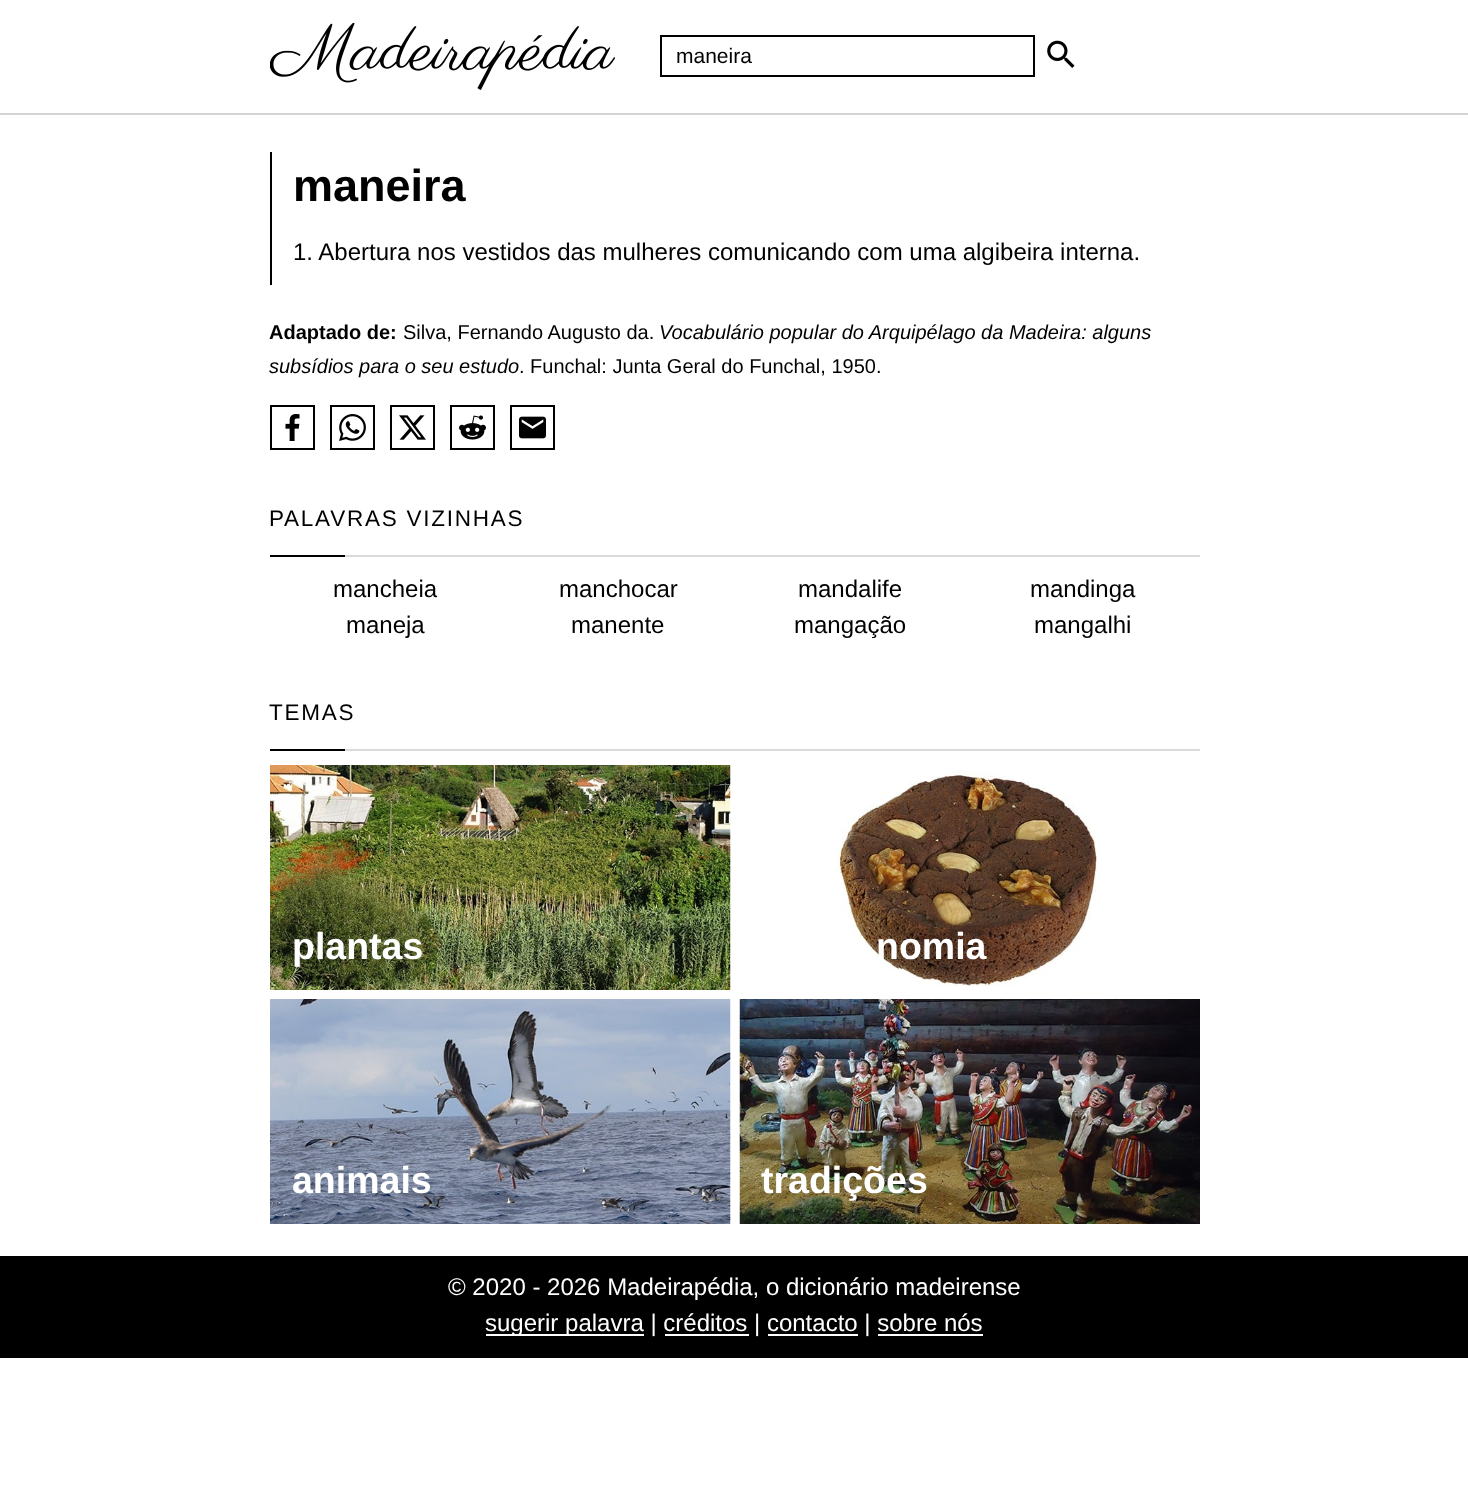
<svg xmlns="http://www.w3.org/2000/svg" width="1468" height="1497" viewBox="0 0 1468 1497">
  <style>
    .t1 { font: 21px Liberation Sans; fill: #000; }
    .t2 { font: bold 45px Liberation Sans; fill: #000; }
    .t3 { font: 24px Liberation Sans; fill: #000; }
    .t4 { font: bold 20px Liberation Sans; fill: #000; }
    .t5 { font: 20px Liberation Sans; fill: #000; }
    .t6 { font: italic 20px Liberation Sans; fill: #000; }
    .t7 { font: 22.5px Liberation Sans; letter-spacing: 1.75px; fill: #000; }
    .t8 { font: bold 37.5px Liberation Sans; fill: #fff; }
    .t9 { font: 24px Liberation Sans; fill: #fff; }
  </style>
  <rect width="100%" height="100%" fill="#fff"/>
  <rect x="0" y="113" width="1468" height="2" fill="#d3d3d3"/>
  <image x="270" y="23" width="345" height="67" href="images/1.png"/>
  <rect x="661" y="36" width="373" height="40" fill="none" stroke="#000" stroke-width="2"/>
  <text x="676" y="63" class="t1">maneira</text>
  <image x="1047" y="40" width="28" height="28" href="images/2.png"/>
  <rect x="270" y="152" width="2" height="133" fill="#000"/>
  <text x="293" y="201" class="t2">maneira</text>
  <text x="293" y="260" class="t3">1. Abertura nos vestidos das mulheres comunicando com uma algibeira interna.</text>
  <text x="269" y="339" class="t4">Adaptado de:</text>
  <text x="403" y="339" class="t5">Silva, Fernando Augusto da.</text>
  <text x="659" y="339" class="t6">Vocabulário popular do Arquipélago da Madeira: alguns</text>
  <text x="269" y="373" class="t6">subsídios para o seu estudo</text>
  <text x="519" y="373" class="t5">. Funchal: Junta Geral do Funchal, 1950.</text>
  <image x="285" y="414" width="15" height="27" href="images/3.png"/>
  <rect x="271" y="406" width="43" height="43" fill="none" stroke="#000" stroke-width="2"/>
  <image x="339" y="414" width="27" height="27" href="images/4.png"/>
  <rect x="331" y="406" width="43" height="43" fill="none" stroke="#000" stroke-width="2"/>
  <image x="399" y="415" width="27" height="25" href="images/5.png"/>
  <rect x="391" y="406" width="43" height="43" fill="none" stroke="#000" stroke-width="2"/>
  <image x="459" y="415" width="27" height="25" href="images/6.png"/>
  <rect x="451" y="406" width="43" height="43" fill="none" stroke="#000" stroke-width="2"/>
  <image x="519" y="416" width="27" height="23" href="images/7.png"/>
  <rect x="511" y="406" width="43" height="43" fill="none" stroke="#000" stroke-width="2"/>
  <text x="269" y="526" class="t7">PALAVRAS VIZINHAS</text>
  <rect x="345" y="555" width="855" height="2" fill="#dadada"/>
  <rect x="270" y="555" width="75" height="2" fill="#000"/>
  <text x="333" y="597" class="t3">mancheia</text>
  <text x="559" y="597" class="t3">manchocar</text>
  <text x="798" y="597" class="t3">mandalife</text>
  <text x="1030" y="597" class="t3">mandinga</text>
  <text x="346" y="633" class="t3">maneja</text>
  <text x="571" y="633" class="t3">manente</text>
  <text x="794" y="633" class="t3">mangação</text>
  <text x="1034" y="633" class="t3">mangalhi</text>
  <text x="269" y="720" class="t7">TEMAS</text>
  <rect x="345" y="749" width="855" height="2" fill="#dadada"/>
  <rect x="270" y="749" width="75" height="2" fill="#000"/>
  <image x="270" y="765" width="461" height="225" href="images/8.png"/>
  <text x="292" y="959" class="t8">plantas</text>
  <image x="836" y="770" width="262" height="216" href="images/9.png"/>
  <text x="876" y="959" class="t8">nomia</text>
  <image x="270" y="999" width="461" height="225" href="images/10.png"/>
  <text x="292" y="1193" class="t8">animais</text>
  <image x="739" y="999" width="461" height="225" href="images/11.png"/>
  <text x="761" y="1193" class="t8">tradições</text>
  <rect x="0" y="1256" width="1468" height="102" fill="#000"/>
  <text x="448" y="1295" class="t9">© 2020 - 2026 Madeirapédia, o dicionário madeirense</text>
  <rect x="486" y="1334" width="158" height="2" fill="#fff"/>
  <text x="485" y="1331" class="t9">sugerir palavra | créditos | contacto | sobre nós</text>
  <rect x="665" y="1334" width="84" height="2" fill="#fff"/>
  <rect x="768" y="1334" width="90" height="2" fill="#fff"/>
  <rect x="878" y="1334" width="105" height="2" fill="#fff"/>
</svg>
